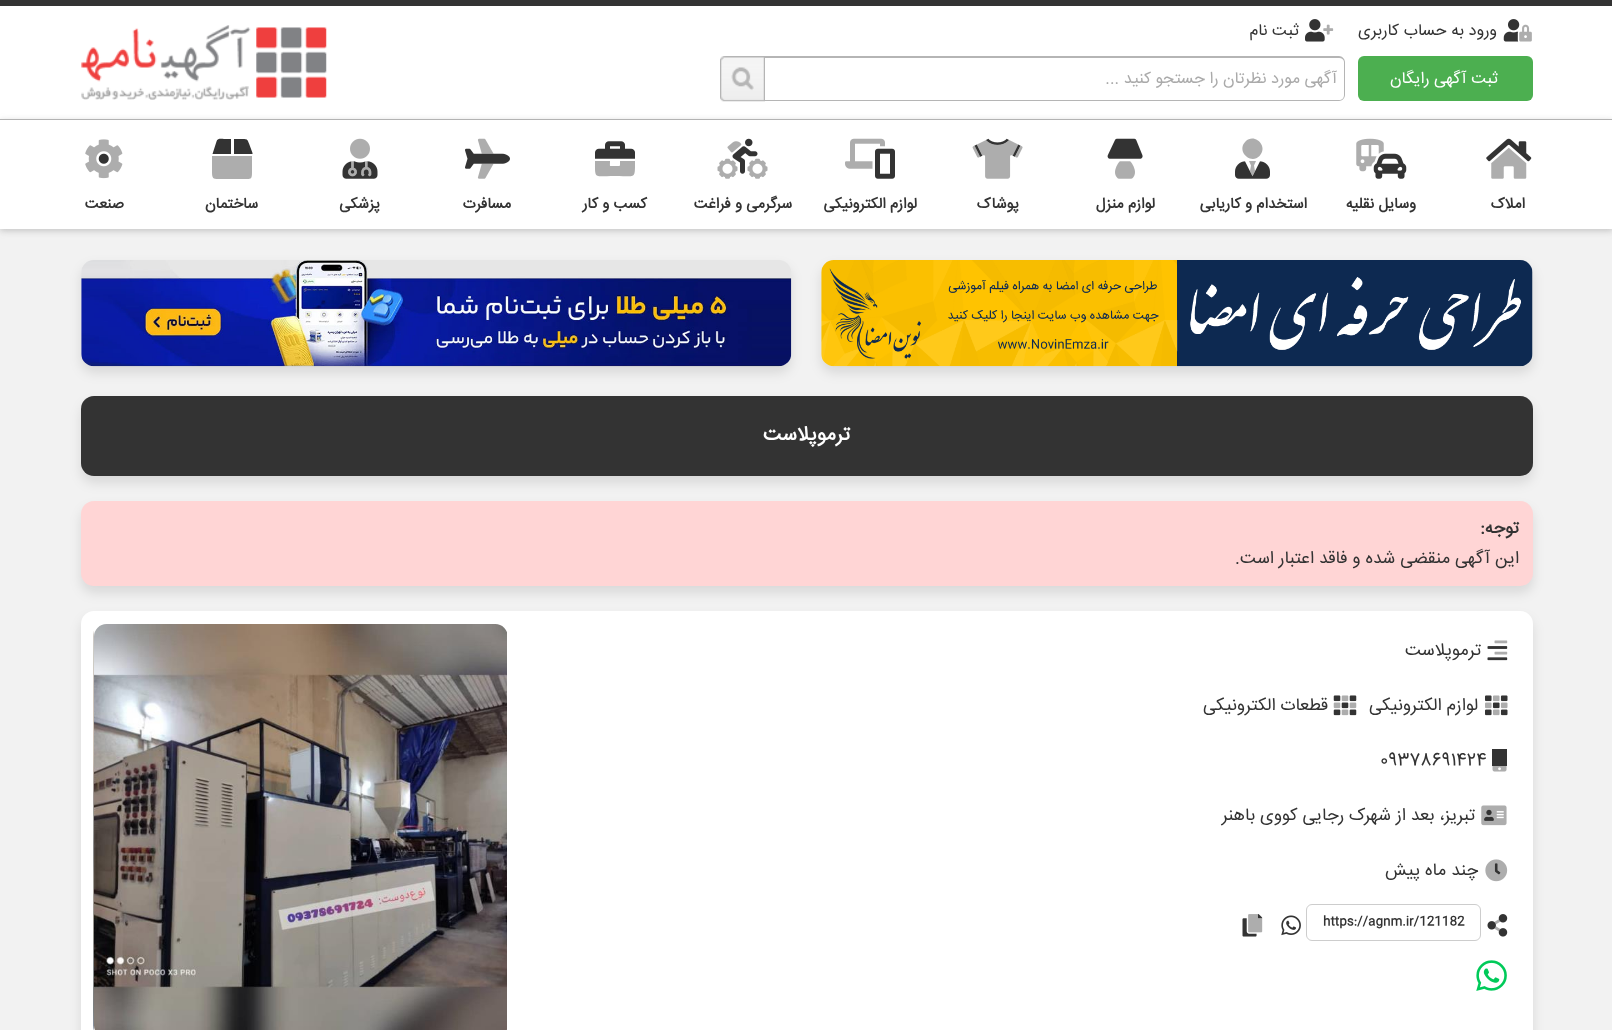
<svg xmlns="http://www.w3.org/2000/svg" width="1612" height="1030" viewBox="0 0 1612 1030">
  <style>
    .t1 { font: 16.25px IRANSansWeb; direction: rtl; fill: #333; }
    .t2 { font: 16.25px IRANSansWeb; direction: rtl; fill: #fff; }
    .t3 { font: 16.25px IRANSansWeb; direction: rtl; fill: #aaa; }
    .t4 { font: bold 15px IRANSansWeb; direction: rtl; fill: #333; }
    .t5 { font: bold 20px IRANSansWeb; direction: rtl; fill: #fff; }
    .t6 { font: bold 17.5px IRANSansWeb; direction: rtl; fill: #333; }
    .t7 { font: 17.5px IRANSansWeb; direction: rtl; fill: #333; }
    .t8 { font: 17.5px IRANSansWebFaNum; direction: rtl; fill: #333; }
    .t9 { font: 17.5px IRANSansWebFaNum; fill: #333; }
    .t10 { font: bold 12.5px IRANSansWeb; fill: #333; }
  </style>
  <rect width="100%" height="100%" fill="#f2f2f2"/>
  <rect x="0" y="0" width="1612" height="6" fill="#333"/>
  <rect x="0" y="6" width="1612" height="113" fill="#fff"/>
  <image x="1503" y="19" width="17" height="23" href="images/2.png"/>
  <image x="1519" y="24" width="13" height="18" href="images/1.png"/>
  <text x="1497" y="35" class="t1">ورود به حساب کاربری</text>
  <image x="1305" y="19" width="20" height="23" href="images/4.png"/>
  <image x="1323" y="24" width="11" height="11" href="images/3.png"/>
  <text x="1299" y="35" class="t1">ثبت نام</text>
  <rect x="1358" y="56" width="175" height="45" rx="6" fill="#4caf50"/>
  <text x="1498" y="83" class="t2">ثبت آگهی رایگان</text>
  <path d="M726 56H1339C1342 56 1345 59 1345 62V95C1345 98 1342 101 1339 101H726C723 101 720 98 720 95V62C720 59 723 56 726 56ZM726 58H1339C1342 58 1344 60 1344 62V95C1344 98 1342 100 1339 100H726C723 100 720 98 720 95V62C720 60 723 58 726 58Z" fill="#b5b5b5" fill-rule="evenodd"/>
  <text x="1337" y="83" class="t3">آگهی مورد نظرتان را جستجو کنید ...</text>
  <image x="720" y="56" width="45" height="46" href="images/5.png"/>
  <image x="81" y="25" width="246" height="75" href="images/6.png"/>
  <rect x="0" y="121" width="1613" height="110" fill="#b5b5b5bf" filter="blur(3px)"/>
  <rect x="0" y="120" width="1612" height="109" fill="#fff"/>
  <rect x="0" y="119" width="1612" height="1" fill="#b3b3b3"/>
  <image x="1486" y="138" width="46" height="24" href="images/7.png"/>
  <image x="1491" y="147" width="36" height="32" href="images/8.png"/>
  <text x="1525" y="208" class="t4">املاک</text>
  <image x="1373" y="153" width="34" height="26" href="images/9.png"/>
  <image x="1356" y="138" width="28" height="34" href="images/10.png"/>
  <text x="1416" y="208" class="t4">وسایل نقلیه</text>
  <image x="1235" y="161" width="35" height="18" href="images/11.png"/>
  <path d="M1250 171L1251 165.5L1249 161H1256L1254 165.5L1255 171L1252.5 176ZM1259.5 156C1250.5 165 1236 151 1245.5 141.5C1254.5 132.5 1269 146.5 1259.5 156Z" fill="#33333366"/>
  <text x="1307" y="208" class="t4">استخدام و کاریابی</text>
  <image x="1107" y="138" width="36" height="21" href="images/12.png"/>
  <image x="1115" y="161" width="20" height="18" href="images/13.png"/>
  <text x="1155" y="208" class="t4">لوازم منزل</text>
  <image x="974" y="138" width="47" height="19" href="images/14.png"/>
  <image x="972" y="140" width="51" height="39" href="images/15.png"/>
  <text x="1019" y="208" class="t4">پوشاک</text>
  <image x="875" y="148" width="20" height="31" href="images/17.png"/>
  <image x="845" y="138" width="40" height="31" href="images/16.png"/>
  <text x="917" y="208" class="t4">لوازم الکترونیکی</text>
  <image x="732" y="138" width="26" height="36" href="images/18.png"/>
  <image x="717" y="141" width="51" height="38" href="images/19.png"/>
  <text x="792" y="208" class="t4">سرگرمی و فراغت</text>
  <image x="595" y="141" width="40" height="18" href="images/20.png"/>
  <path d="M620 161H635C635 180 636 176 615 176C594 176 595 180 595 161H610C610 167 609 166 614 166C621 166 620 167 620 161Z" fill="#adadad"/>
  <text x="647" y="208" class="t4">کسب و کار</text>
  <image x="465" y="148" width="45" height="21" href="images/22.png"/>
  <image x="477" y="138" width="17" height="41" href="images/21.png"/>
  <text x="511" y="208" class="t4">مسافرت</text>
  <image x="342" y="161" width="36" height="18" href="images/24.png"/>
  <image x="348" y="138" width="24" height="39" href="images/23.png"/>
  <text x="380" y="208" class="t4">پزشکی</text>
  <path d="M216.5 141.5C217.5 138 221.5 139 224 139H231V154H212.5ZM252.5 153V154H234V139H243C247 139 247.5 139.5 249 143.5Z" fill="#333"/>
  <path d="M252 156V172C252 180 251 179 243 179H222C214 179 212 180 212 172V156Z" fill="#adadad"/>
  <text x="258" y="208" class="t4">ساختمان</text>
  <image x="98" y="153" width="11" height="11" href="images/26.png"/>
  <image x="85" y="139" width="38" height="40" href="images/25.png"/>
  <text x="124" y="208" class="t4">صنعت</text>
  <rect x="821" y="266" width="712" height="107" rx="13" fill="#0000001a" filter="blur(6px)"/>
  <image x="821" y="260" width="712" height="107" href="images/27.png"/>
  <rect x="81" y="266" width="710" height="107" rx="13" fill="#0000001a" filter="blur(6px)"/>
  <image x="81" y="260" width="711" height="107" href="images/28.png"/>
  <rect x="81" y="403" width="1452" height="80" rx="13" fill="#0000001a" filter="blur(6px)"/>
  <rect x="81" y="396" width="1452" height="80" rx="13" fill="#333"/>
  <text x="850" y="440" class="t5">ترموپلاست</text>
  <rect x="81" y="508" width="1452" height="85" rx="13" fill="#0000001a" filter="blur(6px)"/>
  <rect x="81" y="501" width="1452" height="85" rx="13" fill="#ffd5d5"/>
  <text x="1519" y="533" class="t6">توجه:</text>
  <text x="1519" y="563" class="t7">این آگهی منقضی شده و فاقد اعتبار است.</text>
  <rect x="81" y="618" width="1452" height="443" rx="13" fill="#0000001a" filter="blur(6px)"/>
  <rect x="81" y="611" width="1452" height="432" rx="13" fill="#fff"/>
  <image x="1487" y="646" width="21" height="15" href="images/30.png"/>
  <image x="1494" y="640" width="14" height="15" href="images/29.png"/>
  <text x="1481" y="655" class="t8">ترموپلاست</text>
  <image x="1485" y="695" width="23" height="21" href="images/31.png"/>
  <image x="1485" y="695" width="23" height="21" href="images/32.png"/>
  <text x="1478" y="710" class="t8">لوازم الکترونیکی</text>
  <image x="1333" y="695" width="24" height="21" href="images/33.png"/>
  <image x="1333" y="695" width="24" height="21" href="images/34.png"/>
  <text x="1328" y="710" class="t8">قطعات الکترونیکی</text>
  <rect x="1492" y="749" width="15" height="17" fill="#333"/>
  <image x="1492" y="766" width="15" height="6" href="images/35.png"/>
  <text x="1380" y="765" class="t9">09378691424</text>
  <image x="1484" y="809" width="10" height="12" href="images/37.png"/>
  <image x="1481" y="805" width="26" height="21" href="images/36.png"/>
  <text x="1475" y="820" class="t8">تبریز، بعد از شهرک رجایی کووی باهنر</text>
  <image x="1494" y="863" width="7" height="12" href="images/39.png"/>
  <image x="1485" y="859" width="23" height="23" href="images/38.png"/>
  <text x="1478" y="875" class="t8">چند ماه پیش</text>
  <image x="1487" y="914" width="21" height="23" href="images/40.png"/>
  <image x="1494" y="919" width="6" height="13" href="images/41.png"/>
  <rect x="1306.5" y="904.5" width="174" height="36" rx="5.5" fill="none" stroke="#cdcdcd"/>
  <text x="1323" y="925" class="t10">https://agnm.ir/121182</text>
  <image x="1281" y="915" width="20" height="21" href="images/42.png"/>
  <image x="1242" y="914" width="21" height="23" href="images/43.png"/>
  <image x="1248" y="914" width="15" height="19" href="images/44.png"/>
  <image x="1476" y="960" width="31" height="31" href="images/45.png"/>
  <image x="94" y="624" width="413" height="406" href="images/46.png"/>
  <image x="93" y="631" width="1" height="399" href="images/47.png"/>
</svg>
